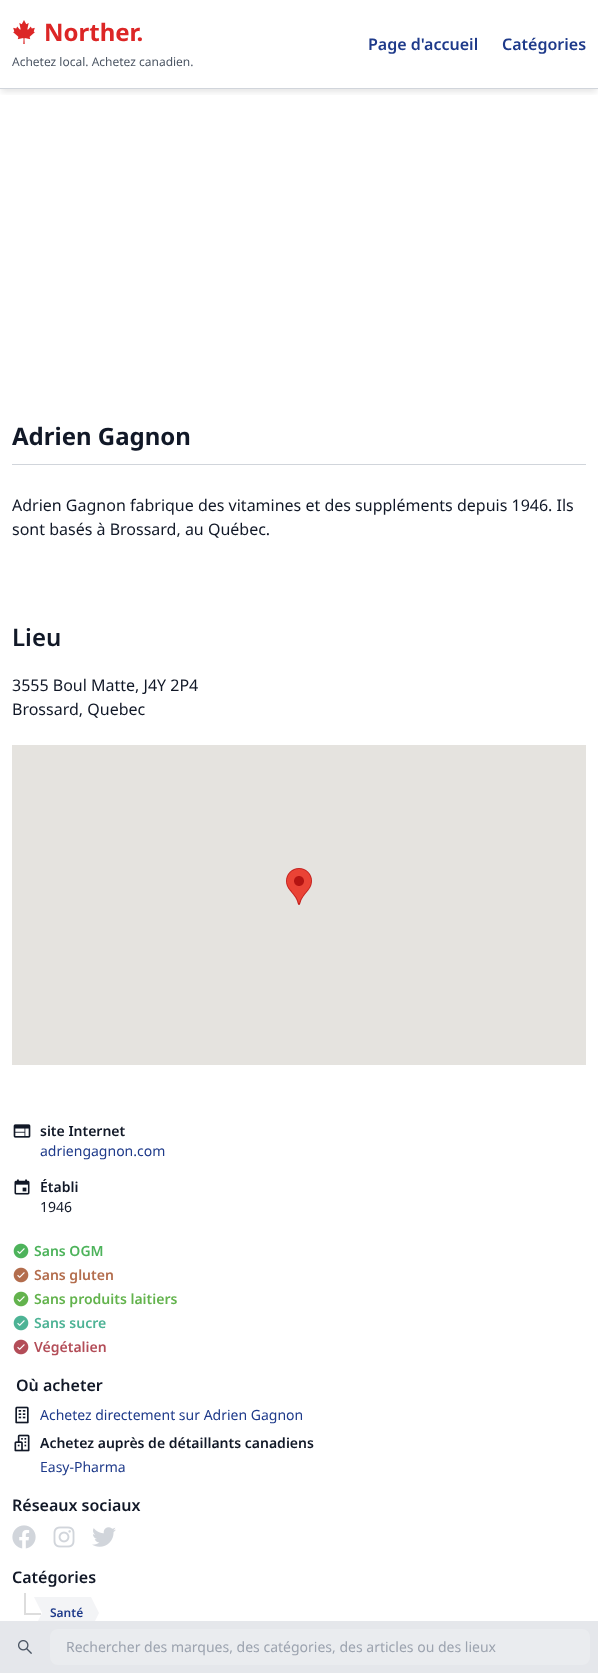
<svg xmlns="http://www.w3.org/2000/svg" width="598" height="1673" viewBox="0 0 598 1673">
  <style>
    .t1 { font: bold 24px Noto Sans; fill: #dc2626; }
    .t2 { font: 12px Noto Sans; fill: #4b5563; }
    .t3 { font: 600 16px Noto Sans; fill: #1e3a8a; }
    .t4 { font: 14px Noto Sans; fill: #9ca3af; }
    .t5 { font: bold 24px Noto Sans; fill: #111827; }
    .t6 { font: 16px Noto Sans; fill: #111827; }
    .t7 { font: 600 24px Noto Sans; fill: #111827; }
    .t8 { font: 600 14px Noto Sans; fill: #111827; }
    .t9 { font: 14px Noto Sans; fill: #1e3a8a; }
    .t10 { font: 14px Noto Sans; fill: #111827; }
    .t11 { font: 600 14px Noto Sans; fill: #4db35b; }
    .t12 { font: 600 14px Noto Sans; fill: #b36d4d; }
    .t13 { font: 600 14px Noto Sans; fill: #63b34d; }
    .t14 { font: 600 14px Noto Sans; fill: #4db395; }
    .t15 { font: 600 14px Noto Sans; fill: #b34d58; }
    .t16 { font: 600 16px Noto Sans; fill: #111827; }
    .t17 { font: 600 12px Noto Sans; fill: #1e3a8a; }
  </style>
  <defs>
    <clipPath id="clip1"><rect x="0" y="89" width="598" height="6"/></clipPath>
  </defs>
  <rect width="100%" height="100%" fill="#fff"/>
  <g clip-path="url(#clip1)">
    <rect x="1" y="5" width="596" height="87" fill="#0000001a" filter="blur(3px)"/>
  </g>
  <rect x="0" y="88" width="598" height="1" fill="#d1d5db"/>
  <image x="13" y="20" width="22" height="24" href="images/1.png"/>
  <text x="44" y="41" class="t1">Norther.</text>
  <text x="12" y="66" class="t2">Achetez local. Achetez canadien.</text>
  <text x="368" y="50" class="t3">Page d'accueil</text>
  <text x="502" y="50" class="t3">Catégories</text>
  <path d="M34 1597H42V1613ZM42 1629H34L42 1613Z" fill="#f3f4f6"/>
  <path d="M91 1629V1597L99 1613Z" fill="#f3f4f6"/>
  <rect x="0" y="1621" width="598" height="52" fill="#e5e7eb"/>
  <image x="18" y="1640" width="14" height="14" href="images/2.png"/>
  <rect x="50" y="1629" width="540" height="36" rx="8" fill="#eaecef"/>
  <text x="66" y="1652" class="t4">Rechercher des marques, des catégories, des articles ou des lieux</text>
  <rect x="12" y="464" width="574" height="1" fill="#d1d5db"/>
  <text x="12" y="445" class="t5">Adrien Gagnon</text>
  <text x="12" y="511" class="t6">Adrien Gagnon fabrique des vitamines et des suppléments depuis 1946. Ils</text>
  <text x="12" y="535" class="t6">sont basés à Brossard, au Québec.</text>
  <text x="12" y="646" class="t7">Lieu</text>
  <text x="12" y="691" class="t6">3555 Boul Matte, J4Y 2P4</text>
  <text x="12" y="715" class="t6">Brossard, Quebec</text>
  <rect x="12" y="745" width="574" height="320" fill="#e5e3df"/>
  <image x="286" y="868" width="26" height="37" href="images/3.png"/>
  <image x="13" y="1124" width="18" height="14" href="images/4.png"/>
  <text x="40" y="1136" class="t8">site Internet</text>
  <text x="40" y="1156" class="t9">adriengagnon.com</text>
  <image x="14" y="1179" width="16" height="16" href="images/5.png"/>
  <text x="40" y="1192" class="t8">Établi</text>
  <text x="40" y="1212" class="t10">1946</text>
  <image x="13" y="1243" width="16" height="16" href="images/6.png"/>
  <text x="34" y="1256" class="t11">Sans OGM</text>
  <image x="13" y="1267" width="16" height="16" href="images/7.png"/>
  <text x="34" y="1280" class="t12">Sans gluten</text>
  <image x="13" y="1291" width="16" height="16" href="images/8.png"/>
  <text x="34" y="1304" class="t13">Sans produits laitiers</text>
  <image x="13" y="1315" width="16" height="16" href="images/9.png"/>
  <text x="34" y="1328" class="t14">Sans sucre</text>
  <image x="13" y="1339" width="16" height="16" href="images/10.png"/>
  <text x="34" y="1352" class="t15">Végétalien</text>
  <text x="16" y="1391" class="t16">Où acheter</text>
  <image x="15" y="1406" width="14" height="18" href="images/11.png"/>
  <text x="40" y="1420" class="t9">Achetez directement sur Adrien Gagnon</text>
  <image x="14" y="1434" width="16" height="18" href="images/12.png"/>
  <text x="40" y="1448" class="t8">Achetez auprès de détaillants canadiens</text>
  <text x="40" y="1472" class="t9">Easy-Pharma</text>
  <text x="12" y="1511" class="t16">Réseaux sociaux</text>
  <image x="12" y="1525" width="24" height="24" href="images/13.png"/>
  <image x="53" y="1526" width="22" height="22" href="images/14.png"/>
  <image x="92" y="1527" width="24" height="20" href="images/15.png"/>
  <text x="12" y="1583" class="t16">Catégories</text>
  <rect x="24" y="1613" width="17" height="2" fill="#ddd"/>
  <rect x="24" y="1593" width="2" height="22" fill="#ddd"/>
  <rect x="42" y="1597" width="49" height="24" fill="#f3f4f6"/>
  <text x="50" y="1617" class="t17">Santé</text>
</svg>
